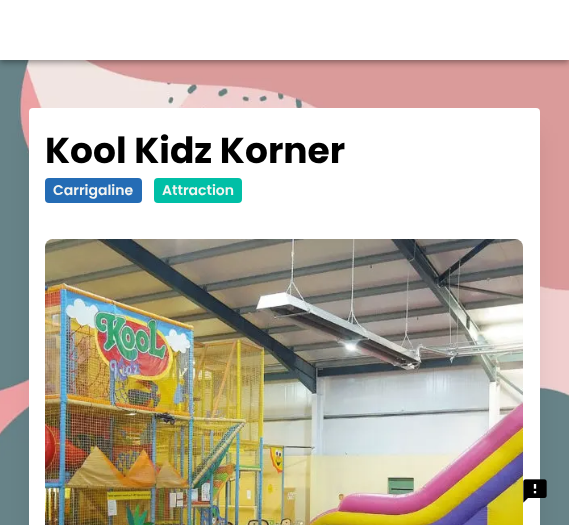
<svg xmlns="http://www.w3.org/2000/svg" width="569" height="525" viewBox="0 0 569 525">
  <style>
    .t1 { font: bold 36px Poppins; fill: #000; }
    .t2 { font: 600 14px Poppins; fill: #f5f5f1; }
  </style>
  <rect width="100%" height="100%" fill="#fff"/>
  <image x="0" y="60" width="569" height="465" href="images/1.png"/>
  <rect x="0" y="1" width="569" height="60" fill="#0000001f" filter="blur(5px)"/>
  <rect x="0" y="4" width="569" height="60" fill="#00000024" filter="blur(2.5px)"/>
  <rect x="1" y="3" width="567" height="58" fill="#00000033" filter="blur(2px)"/>
  <rect x="0" y="0" width="569" height="60" fill="#fff"/>
  <rect x="34" y="133" width="501" height="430" fill="#0000001a" filter="blur(12.5px)"/>
  <rect x="29" y="108" width="511" height="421" rx="4" fill="#fff"/>
  <text x="45" y="163" class="t1">Kool Kidz Korner</text>
  <rect x="45" y="178" width="97" height="25" rx="4" fill="#246cb5"/>
  <text x="53" y="195" class="t2">Carrigaline</text>
  <rect x="154" y="178" width="88" height="25" rx="4" fill="#00bfa6"/>
  <text x="162" y="195" class="t2">Attraction</text>
  <image x="45" y="239" width="478" height="286" href="images/2.png"/>
  <image x="523" y="479" width="24" height="24" href="images/3.png"/>
</svg>
